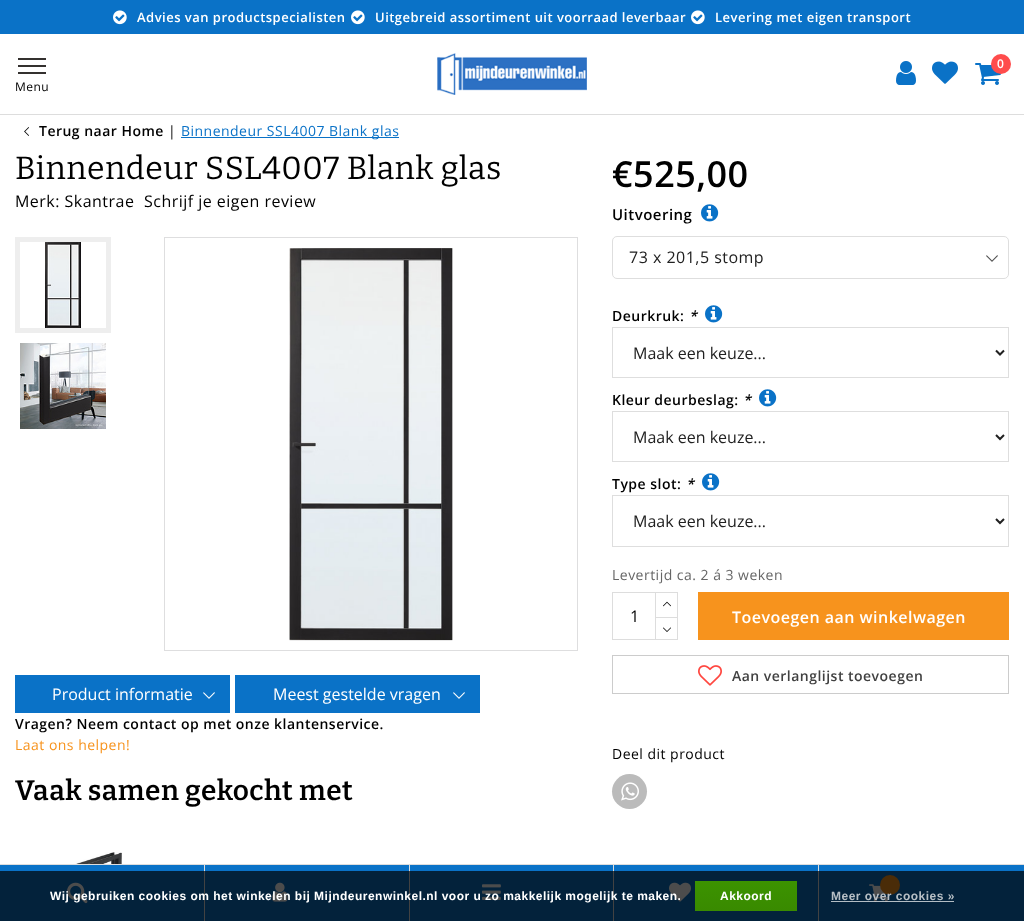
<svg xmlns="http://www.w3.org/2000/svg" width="1024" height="921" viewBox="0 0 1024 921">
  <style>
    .t1 { font: 600 13px Open Sans; letter-spacing: 0.48px; fill: #fff; }
    .t2 { font: 600 12px Open Sans; letter-spacing: 0.48px; fill: #fff; }
    .t3 { font: 12px Open Sans; letter-spacing: 0.48px; fill: #000; }
    .t4 { font: 600 14px Open Sans; letter-spacing: 0.48px; fill: #000; }
    .t5 { font: 14px Open Sans; letter-spacing: 0.48px; fill: #000; }
    .t6 { font: 14px Open Sans; letter-spacing: 0.48px; fill: #0a72c7; }
    .t7 { font: 32px Bitter; letter-spacing: 0.48px; fill: #000; }
    .t8 { font: 16px Open Sans; letter-spacing: 0.48px; fill: #000; }
    .t9 { font: 16px Open Sans; fill: #fff; }
    .t10 { font: 14px Open Sans; letter-spacing: 0.48px; fill: #f7931d; }
    .t11 { font: 600 28px Bitter; letter-spacing: 0.48px; fill: #000; }
    .t12 { font: 600 36px Open Sans; letter-spacing: 0.48px; fill: #000; }
    .t13 { font: 600 15px Open Sans; letter-spacing: 0.48px; fill: #000; }
    .t14 { font: 16px Open Sans; letter-spacing: 0.48px; fill: #212121; }
    .t15 { font: italic 600 14px Open Sans; letter-spacing: 0.48px; fill: #000; }
    .t16 { font: 16px Open Sans; fill: #212121; }
    .t17 { font: 14px Open Sans; letter-spacing: 0.48px; fill: #666; }
    .t18 { font: 16px Open Sans; fill: #000; }
    .t19 { font: 600 16px Open Sans; letter-spacing: 0.48px; fill: #fff; }
    .t20 { font: 600 14px Open Sans; letter-spacing: 0.48px; fill: #414141; }
    .t21 { font: bold 12px Liberation Sans; letter-spacing: 0.48px; fill: #fff; }
    .t22 { font: bold 12px Liberation Sans; letter-spacing: 0.48px; fill: #b7bfc5; }
  </style>
  <defs>
    <linearGradient id="g1" gradientUnits="userSpaceOnUse" x1="746" y1="881" x2="746" y2="911"><stop offset="0" stop-color="#3c9300"/><stop offset="1" stop-color="#398a00"/></linearGradient>
  </defs>
  <rect width="100%" height="100%" fill="#fff"/>
  <rect x="0" y="114" width="1024" height="1" fill="#ddd"/>
  <rect x="0" y="0" width="1024" height="34" fill="#0a72c7"/>
  <image x="113" y="10" width="14" height="15" href="images/1.png"/>
  <text x="137" y="22" class="t1">Advies van productspecialisten</text>
  <image x="351" y="10" width="14" height="15" href="images/1.png"/>
  <text x="375" y="22" class="t1">Uitgebreid assortiment uit voorraad leverbaar</text>
  <image x="691" y="10" width="14" height="15" href="images/1.png"/>
  <text x="715" y="22" class="t1">Levering met eigen transport</text>
  <image x="437" y="53" width="150" height="42" href="images/2.png"/>
  <image x="896" y="61" width="20" height="24" href="images/3.png"/>
  <image x="932" y="61" width="26" height="23" href="images/4.png"/>
  <image x="975" y="63" width="26" height="22" href="images/5.png"/>
  <circle cx="1001" cy="64" r="10" fill="#ff4c4c"/>
  <text x="997" y="68" class="t2">0</text>
  <rect x="18" y="58" width="28" height="2" fill="#34312f"/>
  <rect x="18" y="65" width="28" height="2" fill="#34312f"/>
  <rect x="18" y="72" width="28" height="2" fill="#34312f"/>
  <text x="15" y="91" class="t3">Menu</text>
  <image x="24" y="127" width="5" height="9" href="images/6.png"/>
  <text x="39" y="136" class="t4">Terug naar Home</text>
  <text x="168" y="136" class="t5">|</text>
  <rect x="181" y="137" width="218" height="1" fill="#0a72c7"/>
  <text x="181" y="136" class="t6">Binnendeur SSL4007 Blank glas</text>
  <text x="15" y="179" class="t7">Binnendeur SSL4007 Blank glas</text>
  <text x="15" y="207" class="t8">Merk: Skantrae</text>
  <text x="144" y="207" class="t8">Schrijf je eigen review</text>
  <rect x="17.5" y="239.5" width="91" height="91" fill="none" stroke="#eee" stroke-width="5"/>
  <image x="45" y="242" width="36" height="86" href="images/7.png"/>
  <image x="20" y="343" width="86" height="86" href="images/8.png"/>
  <rect x="164.5" y="237.5" width="413" height="413" fill="none" stroke="#dededf"/>
  <image x="289" y="248" width="164" height="393" href="images/9.png"/>
  <rect x="15" y="675" width="215" height="38" fill="#0a72c7"/>
  <text x="52" y="700" class="t9">Product informatie</text>
  <image x="203" y="692" width="12" height="7" href="images/10.png"/>
  <rect x="235" y="675" width="245" height="38" fill="#0a72c7"/>
  <text x="273" y="700" class="t9">Meest gestelde vragen</text>
  <image x="453" y="692" width="12" height="7" href="images/10.png"/>
  <text x="15" y="729" class="t4">Vragen? Neem contact op met onze klantenservice.</text>
  <text x="15" y="750" class="t10">Laat ons helpen!</text>
  <text x="15" y="800" class="t11">Vaak samen gekocht met</text>
  <image x="50" y="852" width="72" height="12" href="images/11.png"/>
  <text x="612" y="187" class="t12">€525,00</text>
  <text x="612" y="220" class="t13">Uitvoering</text>
  <image x="701" y="204" width="18" height="18" href="images/12.png"/>
  <rect x="612.5" y="236.5" width="396" height="42" rx="4.5" fill="none" stroke="#dedede"/>
  <text x="629" y="263" class="t14">73 x 201,5 stomp</text>
  <image x="986" y="255" width="12" height="7" href="images/13.png"/>
  <text x="612" y="321" class="t4">Deurkruk:</text>
  <text x="689" y="321" class="t15">*</text>
  <image x="705" y="305" width="18" height="18" href="images/12.png"/>
  <rect x="612.5" y="327.5" width="396" height="50" fill="none" stroke="#dedede"/>
  <path d="M996 350.5L1000 354.5L1004 350.5" fill="none" stroke="#212121" stroke-width="2"/>
  <text x="633" y="359" class="t16">Maak een keuze...</text>
  <text x="612" y="405" class="t4">Kleur deurbeslag:</text>
  <text x="743" y="405" class="t15">*</text>
  <image x="759" y="389" width="18" height="18" href="images/12.png"/>
  <rect x="612.5" y="411.5" width="396" height="50" fill="none" stroke="#dedede"/>
  <path d="M996 435L1000 439L1004 435" fill="none" stroke="#212121" stroke-width="2"/>
  <text x="633" y="443" class="t16">Maak een keuze...</text>
  <text x="612" y="489" class="t4">Type slot:</text>
  <text x="686" y="489" class="t15">*</text>
  <image x="702" y="473" width="18" height="18" href="images/12.png"/>
  <rect x="612.5" y="495.5" width="396" height="51" fill="none" stroke="#dedede"/>
  <path d="M996 519L1000 523L1004 519" fill="none" stroke="#212121" stroke-width="2"/>
  <text x="633" y="527" class="t16">Maak een keuze...</text>
  <text x="612" y="580" class="t17">Levertijd ca. 2 á 3 weken</text>
  <rect x="612.5" y="592.5" width="43" height="47" fill="none" stroke="#ddd"/>
  <text x="630" y="622" class="t18">1</text>
  <rect x="656" y="592" width="22" height="1" fill="#ddd"/>
  <rect x="677" y="592" width="1" height="48" fill="#ddd"/>
  <rect x="656" y="617" width="22" height="1" fill="#ddd"/>
  <image x="663" y="601" width="8" height="6" href="images/14.png"/>
  <rect x="656" y="639" width="22" height="1" fill="#ddd"/>
  <image x="663" y="627" width="8" height="5" href="images/15.png"/>
  <rect x="698" y="592" width="311" height="48" fill="#f7931d"/>
  <text x="732" y="623" class="t19">Toevoegen aan winkelwagen</text>
  <rect x="612.5" y="655.5" width="396" height="38" fill="none" stroke="#ccc"/>
  <image x="698" y="665" width="24" height="21" href="images/16.png"/>
  <text x="732" y="681" class="t20">Aan verlanglijst toevoegen</text>
  <text x="612" y="759" class="t5">Deel dit product</text>
  <circle cx="629.5" cy="791.5" r="17.5" fill="#bbb"/>
  <image x="621" y="782" width="18" height="19" href="images/17.png"/>
  <rect x="0" y="865" width="204" height="56" fill="#0a72c7"/>
  <rect x="0" y="864" width="1024" height="1" fill="#ddd"/>
  <rect x="204" y="864" width="1" height="57" fill="#ddd"/>
  <image x="67" y="882" width="21" height="22" href="images/18.png"/>
  <rect x="205" y="865" width="204" height="56" fill="#0a72c7"/>
  <rect x="409" y="864" width="1" height="57" fill="#ddd"/>
  <image x="272" y="882" width="16" height="20" href="images/19.png"/>
  <rect x="410" y="865" width="203" height="56" fill="#0a72c7"/>
  <rect x="613" y="864" width="1" height="57" fill="#ddd"/>
  <image x="482" y="884" width="19" height="16" href="images/20.png"/>
  <rect x="614" y="865" width="204" height="56" fill="#0a72c7"/>
  <rect x="818" y="864" width="1" height="57" fill="#ddd"/>
  <image x="669" y="882" width="22" height="20" href="images/21.png"/>
  <rect x="819" y="865" width="205" height="56" fill="#0a72c7"/>
  <image x="869" y="884" width="19" height="18" href="images/22.png"/>
  <circle cx="890" cy="885" r="10" fill="#f7931d"/>
  <rect x="0" y="871" width="1024" height="50" fill="#000000b3"/>
  <text x="50" y="900" class="t21">Wij gebruiken cookies om het winkelen bij Mijndeurenwinkel.nl voor u zo makkelijk mogelijk te maken.</text>
  <rect x="695" y="881" width="102" height="30" fill="url(#g1)"/>
  <text x="720" y="900" class="t21">Akkoord</text>
  <text x="831" y="900" class="t22">Meer over cookies »</text>
  <rect x="831" y="901" width="123" height="1" fill="#ffffffb3"/>
</svg>
